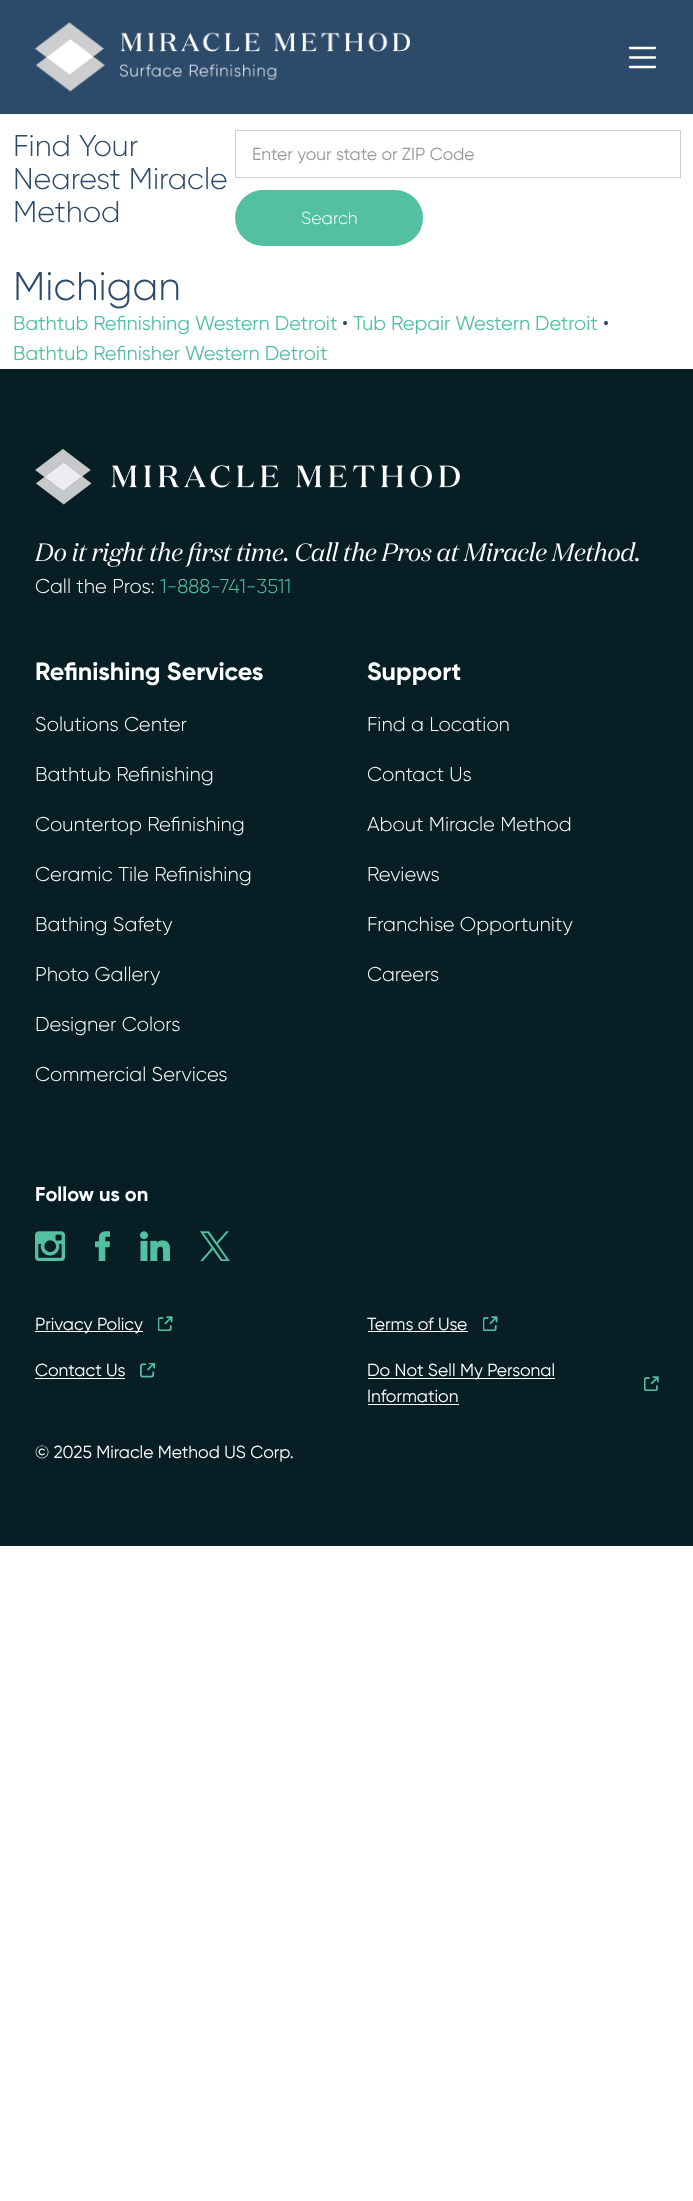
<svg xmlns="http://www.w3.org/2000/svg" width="693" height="2201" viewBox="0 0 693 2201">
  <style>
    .t1 { font: 300 30px Gilroy; fill: #2c4a6a; }
    .t2 { font: 17.5px Gilroy; fill: #999; }
    .t3 { font: 300 17.5px Gilroy; fill: #fff; }
    .t4 { font: 300 40px Gilroy; fill: #2c4a6a; }
    .t5 { font: 20px Gilroy; fill: #53c0a2; }
    .t6 { font: 20px Gilroy; fill: #2c4a6a; }
    .t7 { font: italic 25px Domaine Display; fill: #fff; }
    .t8 { font: 300 20px Gilroy; fill: #fff; }
    .t9 { font: 300 20px Gilroy; fill: #53c0a2; }
    .t10 { font: bold 25px Gilroy; fill: #fff; }
    .t11 { font: bold 20px Gilroy; fill: #fff; }
    .t12 { font: 17.5px Gilroy; fill: #fff; }
  </style>
  <rect width="100%" height="100%" fill="#fff"/>
  <rect x="0" y="0" width="693" height="114" fill="#2c4a6a"/>
  <image x="34" y="22" width="376" height="70" href="images/1.png"/>
  <path d="M655 48H630M630 67H655" fill="none" stroke="#fff" stroke-width="2.3" stroke-linecap="round" stroke-linejoin="round"/>
  <path d="M630 57.5H655" fill="none" stroke="#fff" stroke-width="2.3" stroke-linecap="round"/>
  <text x="13" y="156" class="t1">Find Your</text>
  <text x="13" y="189" class="t1">Nearest Miracle</text>
  <text x="13" y="222" class="t1">Method</text>
  <rect x="235.5" y="130.5" width="445" height="47" fill="none" stroke="#ccc"/>
  <text x="252" y="160" class="t2">Enter your state or ZIP Code</text>
  <rect x="235" y="190" width="188" height="56" rx="28" fill="#53c0a2"/>
  <text x="301" y="224" class="t3">Search</text>
  <text x="13" y="300" class="t4">Michigan</text>
  <text x="13" y="330" class="t5">Bathtub Refinishing Western Detroit</text>
  <text x="342" y="330" class="t6">•</text>
  <text x="353" y="330" class="t5">Tub Repair Western Detroit</text>
  <text x="603" y="330" class="t6">•</text>
  <text x="13" y="360" class="t5">Bathtub Refinisher Western Detroit</text>
  <rect x="0" y="369" width="693" height="1177" fill="#081e25"/>
  <image x="35" y="449" width="425" height="56" href="images/2.png"/>
  <text x="35" y="561" class="t7">Do it right the first time. Call the Pros at Miracle Method.</text>
  <text x="35" y="593" class="t8">Call the Pros:</text>
  <text x="160" y="593" class="t9">1-888-741-3511</text>
  <text x="35" y="680" class="t10">Refinishing Services</text>
  <text x="35" y="731" class="t8">Solutions Center</text>
  <text x="35" y="781" class="t8">Bathtub Refinishing</text>
  <text x="35" y="831" class="t8">Countertop Refinishing</text>
  <text x="35" y="881" class="t8">Ceramic Tile Refinishing</text>
  <text x="35" y="931" class="t8">Bathing Safety</text>
  <text x="35" y="981" class="t8">Photo Gallery</text>
  <text x="35" y="1031" class="t8">Designer Colors</text>
  <text x="35" y="1081" class="t8">Commercial Services</text>
  <text x="367" y="680" class="t10">Support</text>
  <text x="367" y="731" class="t8">Find a Location</text>
  <text x="367" y="781" class="t8">Contact Us</text>
  <text x="367" y="831" class="t8">About Miracle Method</text>
  <text x="367" y="881" class="t8">Reviews</text>
  <text x="367" y="931" class="t8">Franchise Opportunity</text>
  <text x="367" y="981" class="t8">Careers</text>
  <text x="35" y="1201" class="t11">Follow us on</text>
  <image x="35" y="1231" width="30" height="30" href="images/3.png"/>
  <image x="95" y="1231" width="15" height="30" href="images/4.png"/>
  <image x="140" y="1231" width="30" height="30" href="images/5.png"/>
  <image x="200" y="1231" width="30" height="30" href="images/6.png"/>
  <rect x="35" y="1331" width="108" height="1" fill="#fff"/>
  <text x="35" y="1330" class="t12">Privacy Policy</text>
  <image x="158" y="1316" width="15" height="15" href="images/7.png"/>
  <text x="367" y="1330" class="t12">Terms of Use</text>
  <rect x="368" y="1331" width="100" height="1" fill="#fff"/>
  <image x="483" y="1316" width="15" height="15" href="images/7.png"/>
  <text x="35" y="1376" class="t12">Contact Us</text>
  <rect x="35" y="1378" width="90" height="1" fill="#fff"/>
  <image x="140" y="1363" width="15" height="15" href="images/8.png"/>
  <rect x="368" y="1378" width="187" height="1" fill="#fff"/>
  <text x="367" y="1376" class="t12">Do Not Sell My Personal</text>
  <text x="367" y="1402" class="t12">Information</text>
  <rect x="368" y="1404" width="91" height="1" fill="#fff"/>
  <image x="644" y="1376" width="15" height="15" href="images/9.png"/>
  <text x="35" y="1458" class="t12">© 2025 Miracle Method US Corp.</text>
</svg>
